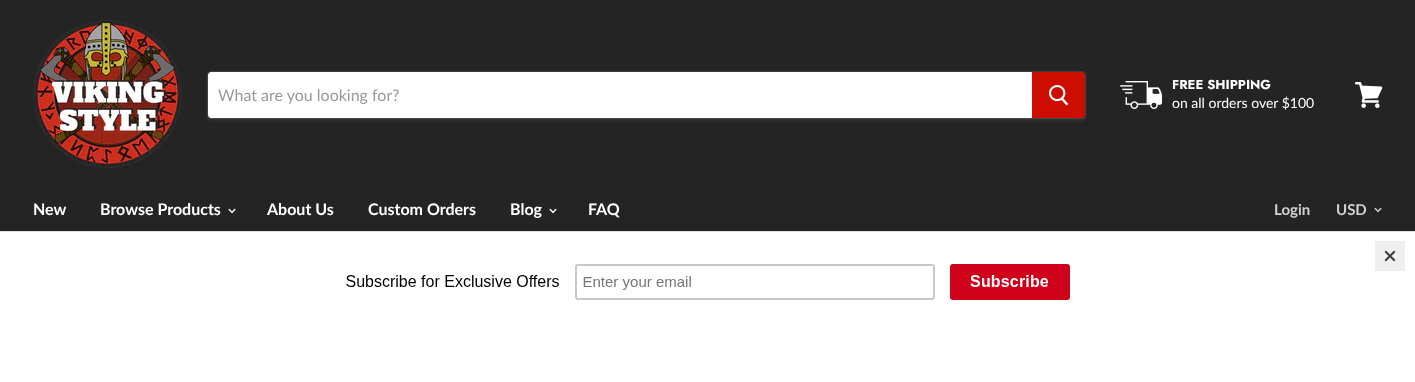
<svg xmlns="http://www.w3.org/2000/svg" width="1415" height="382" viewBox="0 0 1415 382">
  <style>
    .t1 { font: 16px Lato; fill: #999; }
    .t2 { font: bold 13px Jost; fill: #fff; }
    .t3 { font: 14px Lato; fill: #fff; }
    .t4 { font: bold 16px Lato; fill: #fff; }
    .t5 { font: bold 15px Lato; fill: #d3d3d3; }
  </style>
  <rect width="100%" height="100%" fill="#242424"/>
  <image x="33" y="20" width="149" height="148" href="images/1.png"/>
  <rect x="207" y="73" width="879" height="48" rx="4" fill="#a1a1a11c" filter="blur(1.5px)"/>
  <rect x="207.5" y="71.5" width="878" height="47" rx="3.5" fill="none" stroke="#a1a1a133"/>
  <path d="M211 72H1032V118H211C209.5 118 208 116.5 208 115V75C208 73.5 209.5 72 211 72Z" fill="#fff"/>
  <text x="218" y="101" class="t1">What are you looking for?</text>
  <path d="M1032.5 72.5H1082C1083.5 72.5 1084.5 73.5 1084.5 75V115C1084.5 116.5 1083.5 117.5 1082 117.5H1032.5Z" fill="#cd0d00" stroke="#cd0d00"/>
  <image x="1049" y="85" width="20" height="21" href="images/2.png"/>
  <image x="1120" y="81" width="42" height="28" href="images/3.png"/>
  <text x="1172" y="89" class="t2">FREE SHIPPING</text>
  <text x="1172" y="108" class="t3">on all orders over $100</text>
  <image x="1355" y="82" width="28" height="26" href="images/4.png"/>
  <text x="33" y="215" class="t4">New</text>
  <text x="100" y="215" class="t4">Browse Products</text>
  <image x="228" y="208" width="8" height="6" href="images/5.png"/>
  <text x="267" y="215" class="t4">About Us</text>
  <text x="368" y="215" class="t4">Custom Orders</text>
  <text x="510" y="215" class="t4">Blog</text>
  <image x="549" y="208" width="8" height="6" href="images/5.png"/>
  <text x="588" y="215" class="t4">FAQ</text>
  <text x="1274" y="215" class="t5">Login</text>
  <text x="1336" y="215" class="t5">USD</text>
  <image x="1374" y="207" width="8" height="6" href="images/6.png"/>
  <rect x="0" y="232" width="1415" height="150" fill="#fff"/>
  <rect x="0" y="231" width="1415" height="1" fill="#e0e0e0"/>
  <image x="346" y="264" width="724" height="36" href="images/7.png"/>
  <rect x="1375" y="241" width="30" height="30" fill="#efefef"/>
  <path d="M1394 250.5L1395.5 252L1386 261.5L1384.5 260Z" fill="#414141"/>
  <path d="M1384.5 252L1386 250.5L1395.5 260L1394 261.5Z" fill="#414141"/>
</svg>
